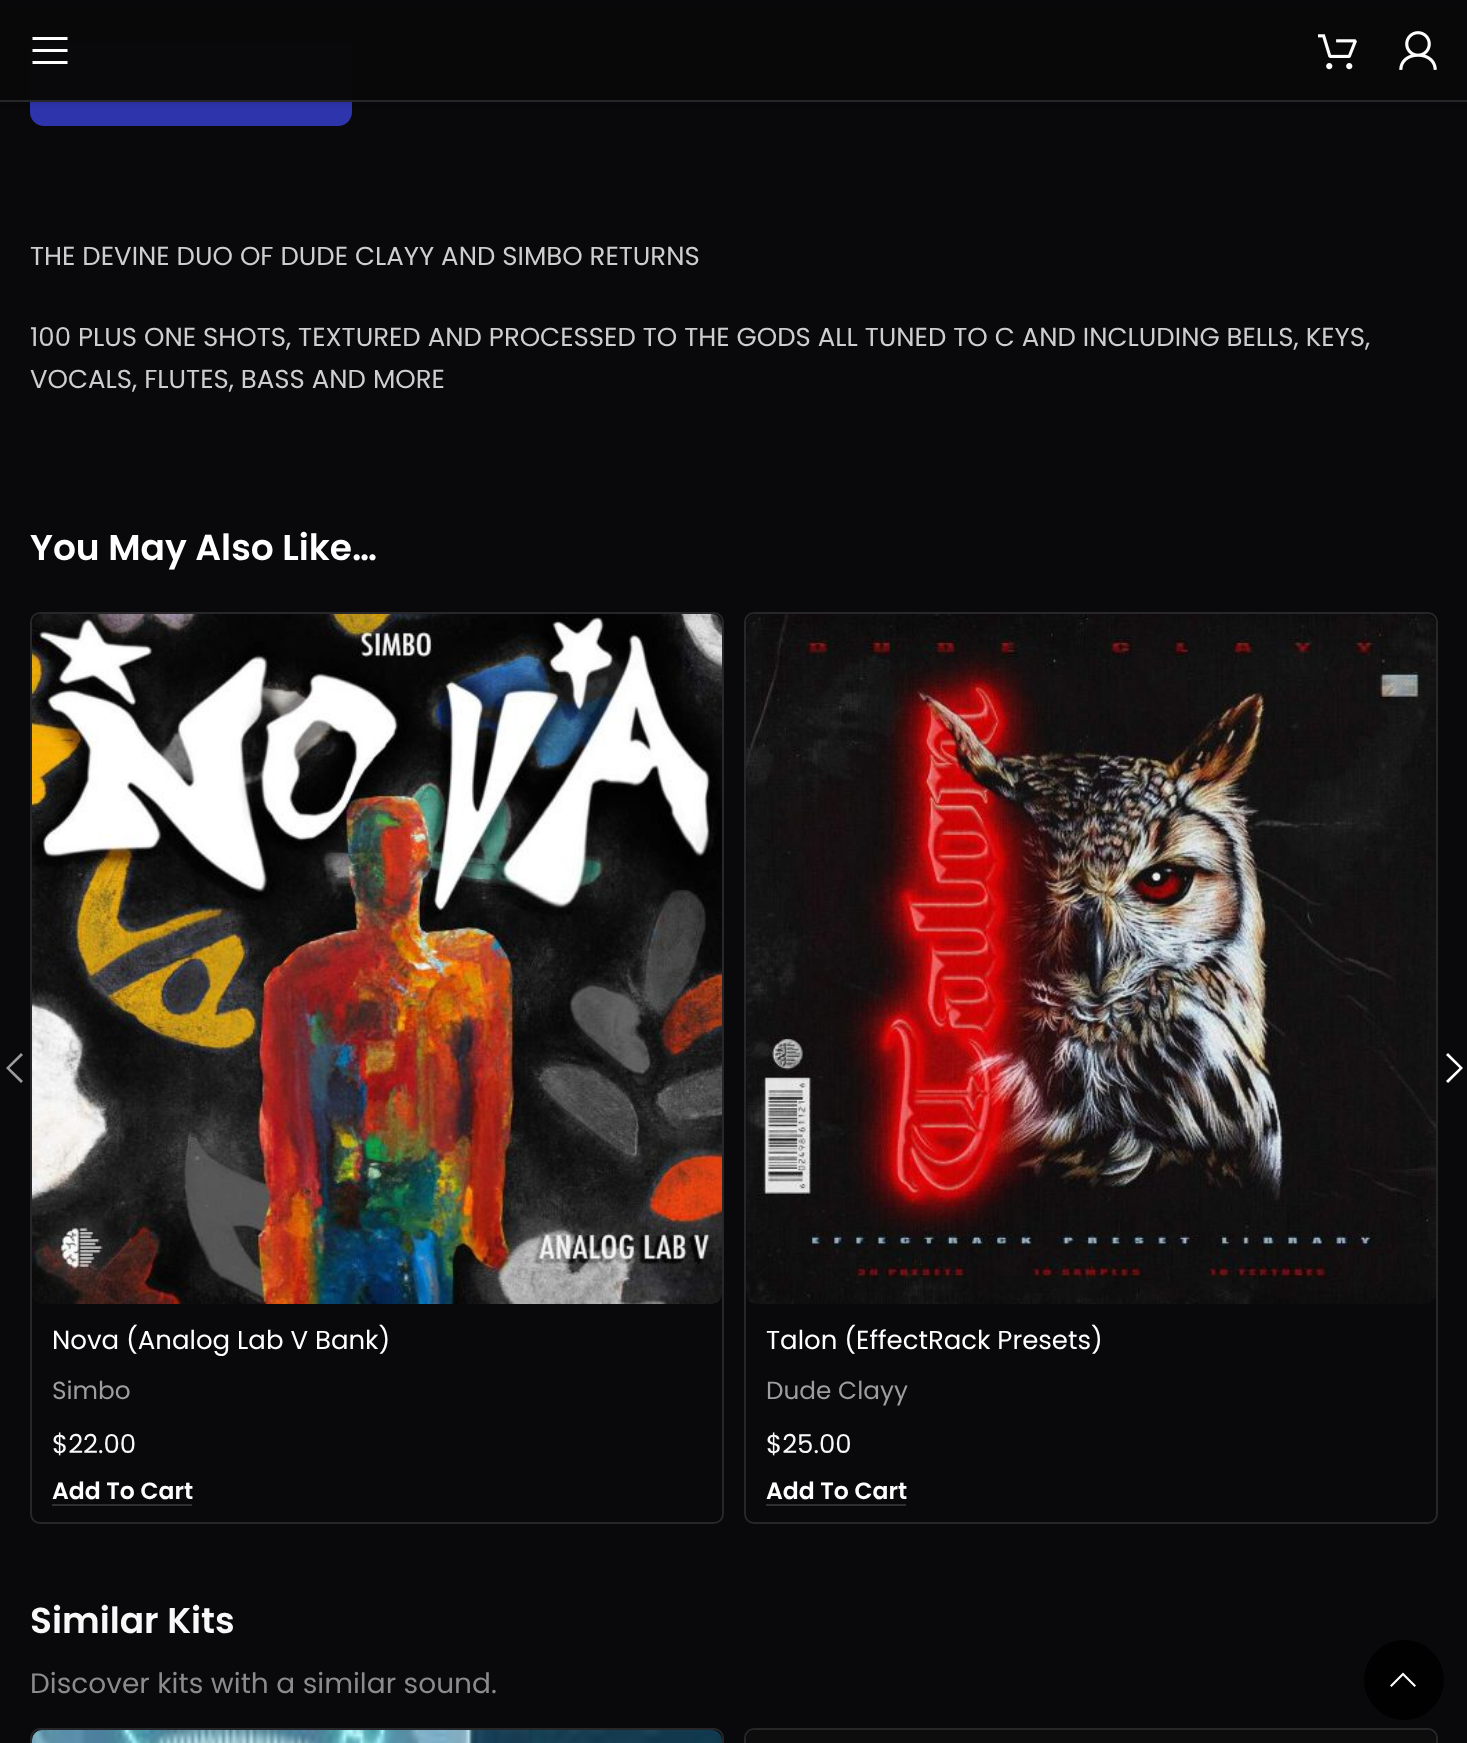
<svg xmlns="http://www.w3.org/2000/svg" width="1467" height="1743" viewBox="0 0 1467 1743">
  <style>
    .t1 { font: 26px Poppins; fill: #cecece; }
    .t2 { font: 600 36px Poppins; fill: #fff; }
    .t3 { font: 26px Poppins; fill: #fff; }
    .t4 { font: 24.75px Poppins; fill: #9d9d9d; }
    .t5 { font: 26px Poppins; fill: #f8f8f8; }
    .t6 { font: 600 23.5px Poppins; fill: #fff; }
    .t7 { font: 600 36px Poppins; fill: #f8f8f8; }
    .t8 { font: 28px Poppins; fill: #8b8b8b; }
  </style>
  <rect width="100%" height="100%" fill="#09090b"/>
  <rect x="30" y="42" width="322" height="84" rx="14" fill="#2e34ab"/>
  <rect x="0" y="2" width="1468" height="102" fill="#0000001a" filter="blur(3px)"/>
  <rect x="30" y="42" width="322" height="58" fill="#09090b"/>
  <rect x="0" y="100" width="1467" height="2" fill="#27272a"/>
  <path d="M32.5 40H67.5V37H32.5ZM32.5 52H67.5V49H32.5ZM32.5 64H67.5V61H32.5Z" fill="#fff"/>
  <image x="1318" y="34" width="39" height="36" href="images/1.png"/>
  <image x="1399" y="31" width="38" height="39" href="images/2.png"/>
  <text x="30" y="265" class="t1">THE DEVINE DUO OF DUDE CLAYY AND SIMBO RETURNS</text>
  <text x="30" y="346" class="t1">100 PLUS ONE SHOTS, TEXTURED AND PROCESSED TO THE GODS ALL TUNED TO C AND INCLUDING BELLS, KEYS,</text>
  <text x="30" y="388" class="t1">VOCALS, FLUTES, BASS AND MORE</text>
  <text x="30" y="560" class="t2">You May Also Like…</text>
  <path d="M23 1055L21 1053L6 1068L21 1083L23 1081L9.5 1068Z" fill="#9d9d9d"/>
  <path d="M1446 1055L1459.5 1068L1446 1081L1448 1083L1463 1068L1448 1053Z" fill="#fff"/>
  <rect x="31" y="613" width="692" height="910" rx="9" fill="none" stroke="#27272a" stroke-width="2"/>
  <image x="32" y="614" width="690" height="690" href="images/3.png"/>
  <text x="52" y="1349" class="t3">Nova (Analog Lab V Bank)</text>
  <text x="52" y="1399" class="t4">Simbo</text>
  <text x="52" y="1453" class="t5">$22.00</text>
  <rect x="52" y="1504" width="140" height="2" fill="#2f2f2f"/>
  <text x="52" y="1499" class="t6">Add To Cart</text>
  <rect x="745" y="613" width="692" height="910" rx="9" fill="none" stroke="#27272a" stroke-width="2"/>
  <image x="746" y="614" width="690" height="690" href="images/4.png"/>
  <text x="766" y="1349" class="t3">Talon (EffectRack Presets)</text>
  <text x="766" y="1399" class="t4">Dude Clayy</text>
  <text x="766" y="1453" class="t5">$25.00</text>
  <rect x="766" y="1504" width="140" height="2" fill="#2f2f2f"/>
  <text x="766" y="1499" class="t6">Add To Cart</text>
  <text x="30" y="1633" class="t7">Similar Kits</text>
  <text x="30" y="1693" class="t8">Discover kits with a similar sound.</text>
  <rect x="31" y="1729" width="692" height="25" rx="9" fill="none" stroke="#27272a" stroke-width="2"/>
  <rect x="32" y="1730" width="690" height="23" rx="10" fill="#0d0d0e"/>
  <image x="32" y="1730" width="690" height="13" href="images/5.png"/>
  <rect x="745" y="1729" width="692" height="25" rx="9" fill="none" stroke="#27272a" stroke-width="2"/>
  <rect x="746" y="1730" width="690" height="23" rx="10" fill="#0d0d0e"/>
  <circle cx="1404" cy="1680" r="40" fill="#010101"/>
  <path d="M1414.5 1687L1416 1685.5L1403 1672.5L1390 1685.5L1391.5 1687L1403 1675.5Z" fill="#fff"/>
</svg>
